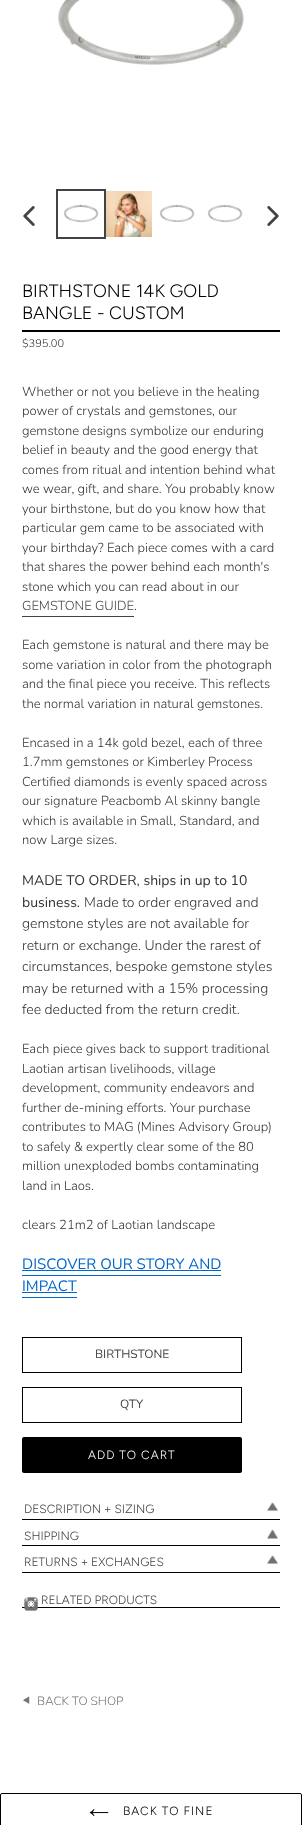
<svg xmlns="http://www.w3.org/2000/svg" width="302" height="1825" viewBox="0 0 302 1825">
  <style>
    .t1 { font: 300 18px Figtree; fill: #000; }
    .t2 { font: 300 11px Nunito; fill: #333; }
    .t3 { font: 300 13px Nunito; fill: #333; }
    .t4 { font: 300 13px Nunito; fill: #414346; }
    .t5 { font: 14px Nunito; fill: #333; }
    .t6 { font: 300 14px Nunito; fill: #333; }
    .t7 { font: 15px Nunito; fill: #06c; }
    .t8 { font: 12px Nunito; fill: #414346; }
    .t9 { font: 300 12px Figtree; letter-spacing: 1px; fill: #fff; }
    .t10 { font: 300 12px Figtree; fill: #414346; }
    .t11 { font: 300 12px Nunito; fill: #707070; }
    .t12 { font: 300 12px Figtree; letter-spacing: 1px; fill: #000; }
  </style>
  <rect width="100%" height="100%" fill="#fff"/>
  <image x="58" y="0" width="187" height="65" href="images/1.png"/>
  <image x="23" y="206" width="12" height="20" href="images/2.png"/>
  <rect x="57" y="190" width="48" height="48" fill="none" stroke="#414346" stroke-width="2"/>
  <image x="63" y="204" width="36" height="19" href="images/3.png"/>
  <image x="106" y="191" width="46" height="46" href="images/4.png"/>
  <image x="159" y="204" width="36" height="18" href="images/5.png"/>
  <image x="207" y="204" width="36" height="19" href="images/6.png"/>
  <image x="267" y="206" width="12" height="20" href="images/7.png"/>
  <rect x="22" y="330" width="258" height="2" fill="#000"/>
  <text x="22" y="297" class="t1">BIRTHSTONE 14K GOLD</text>
  <text x="22" y="319" class="t1">BANGLE - CUSTOM</text>
  <text x="22" y="347" class="t2">$395.00</text>
  <text x="22" y="396" class="t3">Whether or not you believe in the healing</text>
  <text x="22" y="415" class="t3">power of crystals and gemstones, our</text>
  <text x="22" y="435" class="t3">gemstone designs symbolize our enduring</text>
  <text x="22" y="454" class="t3">belief in beauty and the good energy that</text>
  <text x="22" y="474" class="t3">comes from ritual and intention behind what</text>
  <text x="22" y="493" class="t3">we wear, gift, and share. You probably know</text>
  <text x="22" y="513" class="t3">your birthstone, but do you know how that</text>
  <text x="22" y="532" class="t3">particular gem came to be associated with</text>
  <text x="22" y="552" class="t3">your birthday? Each piece comes with a card</text>
  <text x="22" y="571" class="t3">that shares the power behind each month's</text>
  <text x="22" y="591" class="t3">stone which you can read about in our</text>
  <text x="22" y="610" class="t4">GEMSTONE GUIDE</text>
  <rect x="22" y="616" width="112" height="1" fill="#414346"/>
  <text x="134" y="610" class="t3">.</text>
  <text x="22" y="649" class="t3">Each gemstone is natural and there may be</text>
  <text x="22" y="669" class="t3">some variation in color from the photograph</text>
  <text x="22" y="688" class="t3">and the final piece you receive. This reflects</text>
  <text x="22" y="708" class="t3">the normal variation in natural gemstones.</text>
  <text x="22" y="747" class="t3">Encased in a 14k gold bezel, each of three</text>
  <text x="22" y="766" class="t3">1.7mm gemstones or Kimberley Process</text>
  <text x="22" y="786" class="t3">Certified diamonds is evenly spaced across</text>
  <text x="22" y="805" class="t3">our signature Peacbomb Al skinny bangle</text>
  <text x="22" y="825" class="t3">which is available in Small, Standard, and</text>
  <text x="22" y="844" class="t3">now Large sizes.</text>
  <text x="22" y="885" class="t5">MADE TO ORDER, ships in up to 10</text>
  <text x="22" y="907" class="t5">business.</text>
  <text x="84" y="907" class="t6">Made to order engraved and</text>
  <text x="22" y="928" class="t6">gemstone styles are not available for</text>
  <text x="22" y="950" class="t6">return or exchange. Under the rarest of</text>
  <text x="22" y="971" class="t6">circumstances, bespoke gemstone styles</text>
  <text x="22" y="993" class="t6">may be returned with a 15% processing</text>
  <text x="22" y="1014" class="t6">fee deducted from the return credit.</text>
  <text x="22" y="1053" class="t3">Each piece gives back to support traditional</text>
  <text x="22" y="1073" class="t3">Laotian artisan livelihoods, village</text>
  <text x="22" y="1092" class="t3">development, community endeavors and</text>
  <text x="22" y="1112" class="t3">further de-mining efforts. Your purchase</text>
  <text x="22" y="1131" class="t3">contributes to MAG (Mines Advisory Group)</text>
  <text x="22" y="1151" class="t3">to safely &amp; expertly clear some of the 80</text>
  <text x="22" y="1170" class="t3">million unexploded bombs contaminating</text>
  <text x="22" y="1190" class="t3">land in Laos.</text>
  <text x="22" y="1229" class="t3">clears 21m2 of Laotian landscape</text>
  <text x="22" y="1269" class="t7">DISCOVER OUR STORY AND</text>
  <rect x="22" y="1270" width="199" height="1" fill="#06c"/>
  <text x="22" y="1291" class="t7">IMPACT</text>
  <rect x="22" y="1275" width="199" height="1" fill="#06c"/>
  <rect x="22" y="1297" width="55" height="1" fill="#06c"/>
  <rect x="22" y="1292" width="55" height="1" fill="#06c"/>
  <rect x="22.5" y="1337.5" width="219" height="35" fill="none" stroke="#000"/>
  <text x="95" y="1358" class="t8">BIRTHSTONE</text>
  <rect x="22.5" y="1387.5" width="219" height="35" fill="none" stroke="#000"/>
  <text x="120" y="1408" class="t8">QTY</text>
  <rect x="22" y="1437" width="220" height="36" rx="2" fill="#000"/>
  <text x="88" y="1459" class="t9">ADD TO CART</text>
  <rect x="22" y="1519" width="258" height="1" fill="#000"/>
  <image x="267" y="1502" width="11" height="9" href="images/8.png"/>
  <text x="24" y="1513" class="t10">DESCRIPTION + SIZING</text>
  <rect x="22" y="1545" width="258" height="1" fill="#000"/>
  <image x="267" y="1529" width="11" height="10" href="images/9.png"/>
  <text x="24" y="1540" class="t10">SHIPPING</text>
  <rect x="22" y="1572" width="258" height="1" fill="#000"/>
  <image x="267" y="1555" width="11" height="9" href="images/8.png"/>
  <text x="24" y="1566" class="t10">RETURNS + EXCHANGES</text>
  <rect x="22" y="1607" width="258" height="1" fill="#000"/>
  <image x="24" y="1597" width="14" height="14" href="images/10.png"/>
  <text x="41" y="1604" class="t10">RELATED PRODUCTS</text>
  <image x="23" y="1696" width="7" height="8" href="images/11.png"/>
  <text x="37" y="1705" class="t11">BACK TO SHOP</text>
  <rect x="0.5" y="1793.5" width="301" height="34" rx="1.5" fill="none" stroke="#000"/>
  <image x="89" y="1809" width="20" height="8" href="images/12.png"/>
  <text x="123" y="1815" class="t12">BACK TO FINE</text>
</svg>
